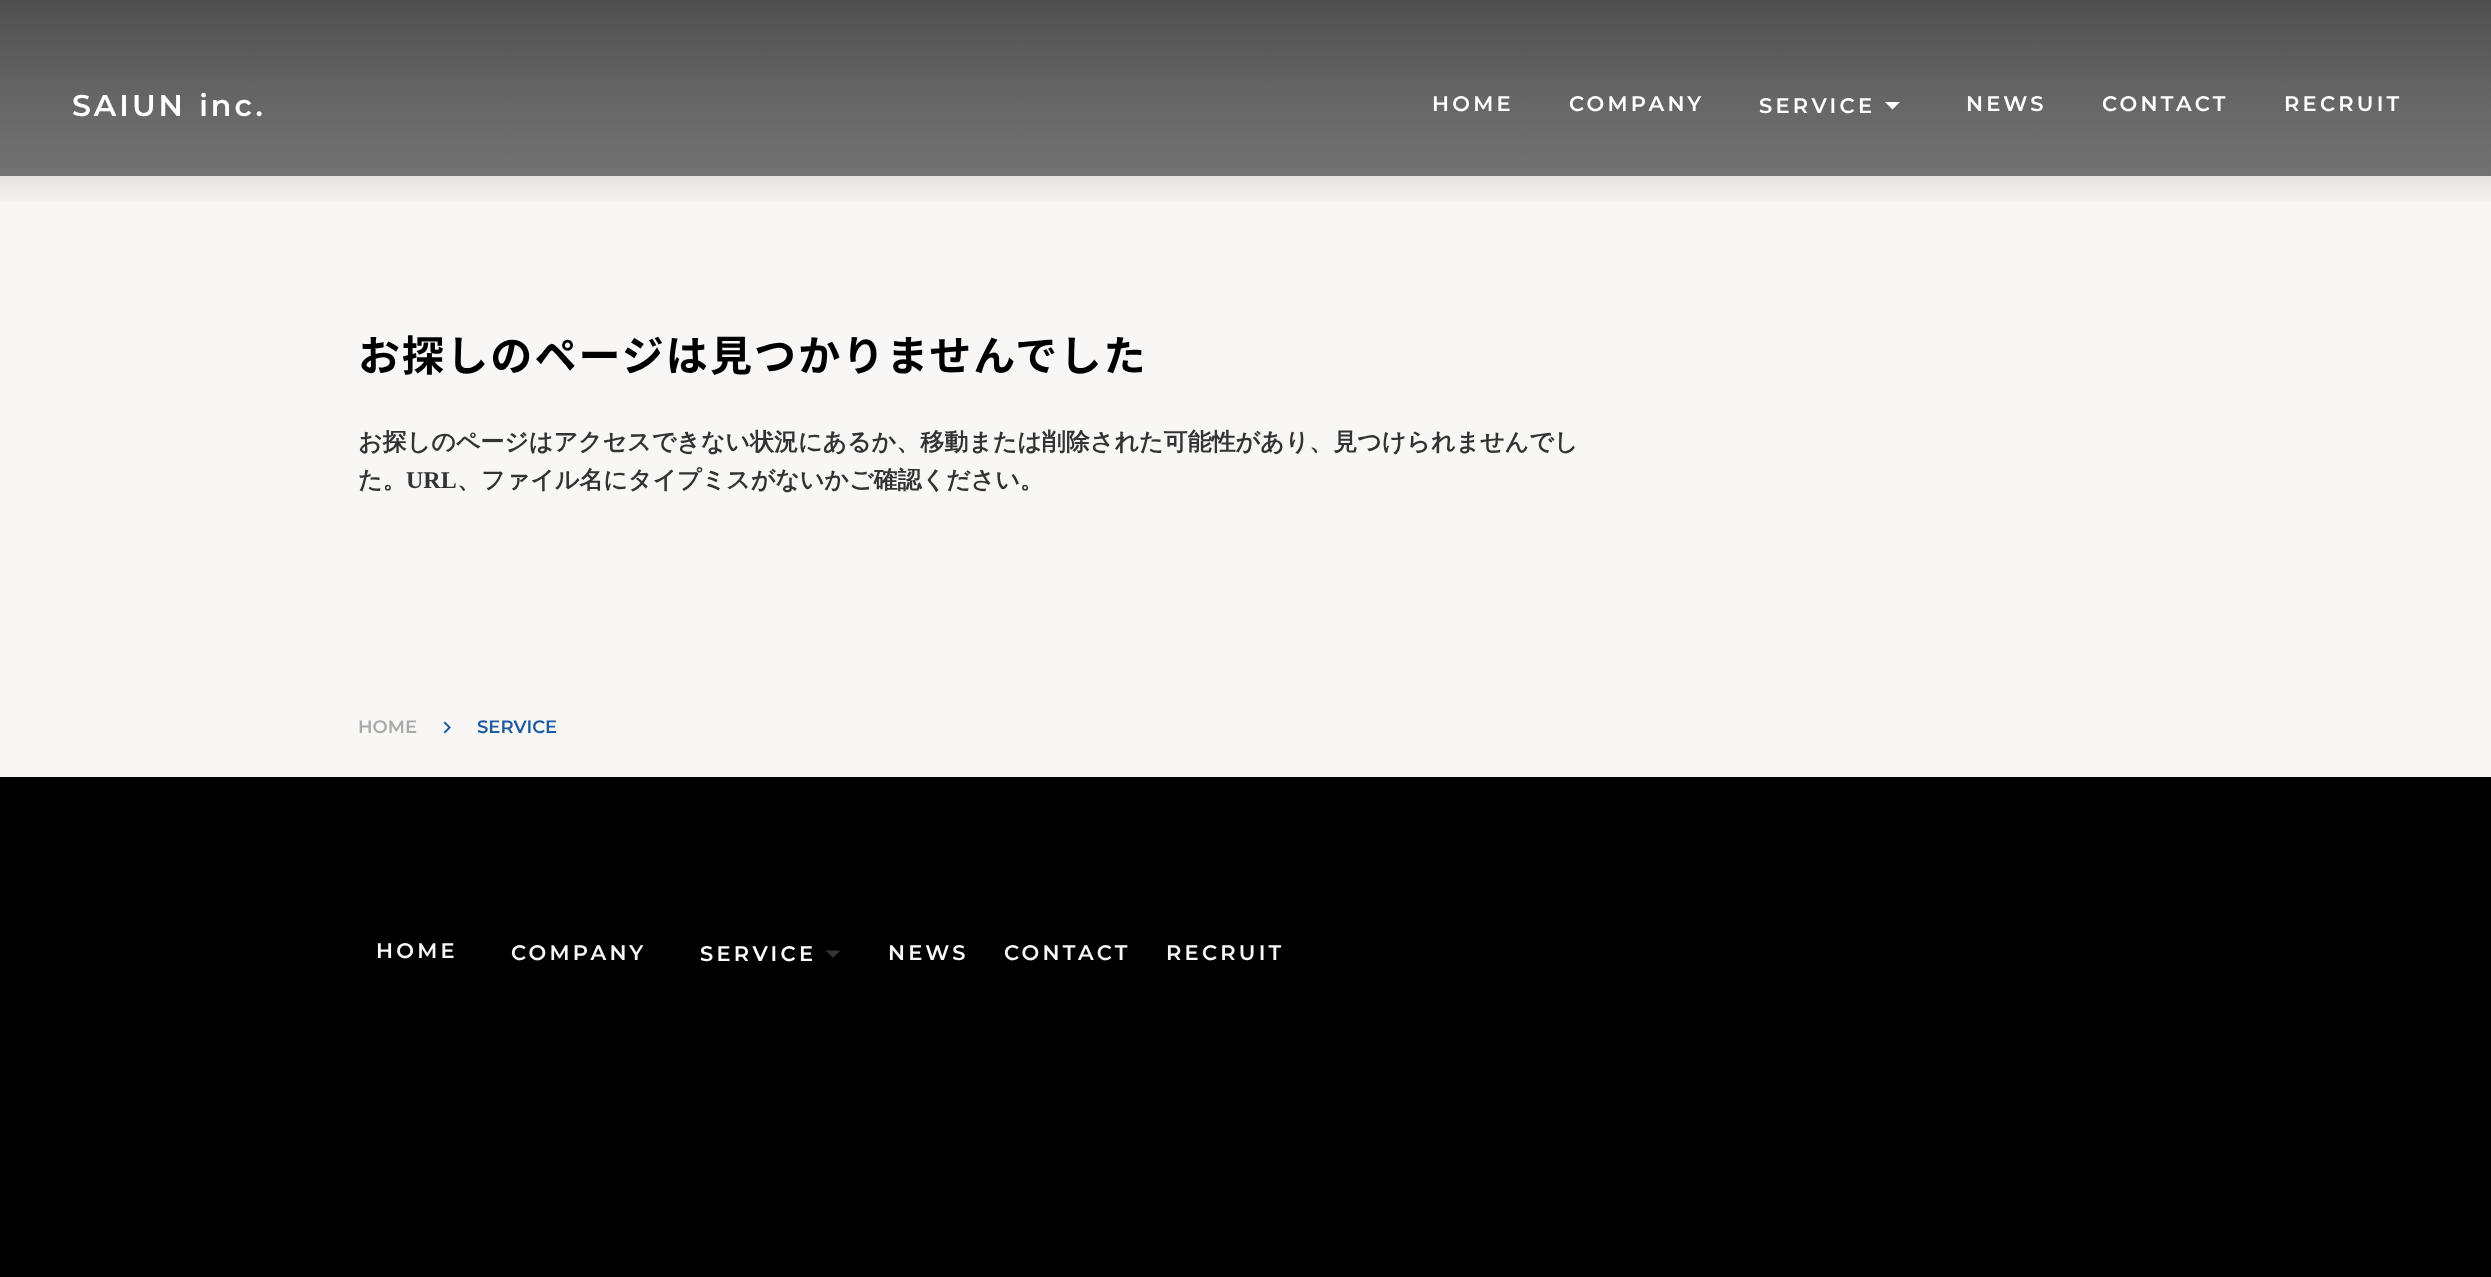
<svg xmlns="http://www.w3.org/2000/svg" width="2491" height="1277" viewBox="0 0 2491 1277">
  <style>
    .t1 { font: 600 30px Montserrat; letter-spacing: 3px; fill: #fff; }
    .t2 { font: 600 21px Montserrat; letter-spacing: 3.25px; fill: #fff; }
    .t3 { font: bold 42px Noto Sans JP; letter-spacing: 2.1px; fill: #000; }
    .t4 { font: bold 24px WenQuanYi Zen Hei; fill: #333; }
    .t5 { font: bold 24px Liberation Serif; fill: #333; }
    .t6 { font: 600 18px Montserrat; fill: #aaa; }
    .t7 { font: 600 18px Montserrat; fill: #1e5a9f; }
    .t8 { font: 600 21px Montserrat; letter-spacing: 3.25px; fill: #f8f7f6; }
  </style>
  <defs>
    <linearGradient id="g1" gradientUnits="userSpaceOnUse" x1="1246" y1="-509" x2="1246" y2="176"><stop offset="0" stop-color="#f8f8f7"/><stop offset="1" stop-color="#7c7c7c"/></linearGradient>
    <linearGradient id="g2" gradientUnits="userSpaceOnUse" x1="1246" y1="0" x2="1246" y2="210"><stop offset="0" stop-color="#000" stop-opacity="0.5"/><stop offset="1" stop-color="#000" stop-opacity="0"/></linearGradient>
  </defs>
  <rect width="100%" height="100%" fill="#f8f7f6"/>
  <rect x="0" y="0" width="2491" height="176" fill="url(#g1)"/>
  <rect x="0" y="0" width="2491" height="201" fill="url(#g2)"/>
  <text x="72" y="116" word-spacing="2" class="t1">SAIUN inc.</text>
  <text x="1432" y="111" class="t2">HOME</text>
  <text x="1569" y="111" class="t2">COMPANY</text>
  <text x="1759" y="113" class="t2">SERVICE</text>
  <path d="M1900 102L1892.5 109.5L1885 102Z" fill="#fff"/>
  <text x="1966" y="111" class="t2">NEWS</text>
  <text x="2102" y="111" class="t2">CONTACT</text>
  <text x="2284" y="111" class="t2">RECRUIT</text>
  <text x="358" y="371" class="t3">お探しのページは見つかりませんでした</text>
  <text x="358" y="450" class="t4">お探しのページはアクセスできない状況にあるか、移動または削除された可能性があり、見つけられませんでし</text>
  <text x="358" y="488" class="t4">た。</text>
  <text x="406" y="488" class="t5">URL</text>
  <text x="457" y="488" class="t4">、ファイル名にタイプミスがないかご確認ください。</text>
  <text x="358" y="733" class="t6">HOME</text>
  <image x="443" y="721" width="8" height="13" href="images/1.png"/>
  <text x="477" y="733" class="t7">SERVICE</text>
  <rect x="0" y="777" width="2491" height="500" fill="#000"/>
  <text x="376" y="958" class="t8">HOME</text>
  <text x="511" y="960" class="t8">COMPANY</text>
  <text x="700" y="961" class="t2">SERVICE</text>
  <path d="M840.5 950.5L833 958L825.5 950.5Z" fill="#333"/>
  <text x="888" y="960" class="t8">NEWS</text>
  <text x="1004" y="960" class="t8">CONTACT</text>
  <text x="1166" y="960" class="t8">RECRUIT</text>
</svg>
